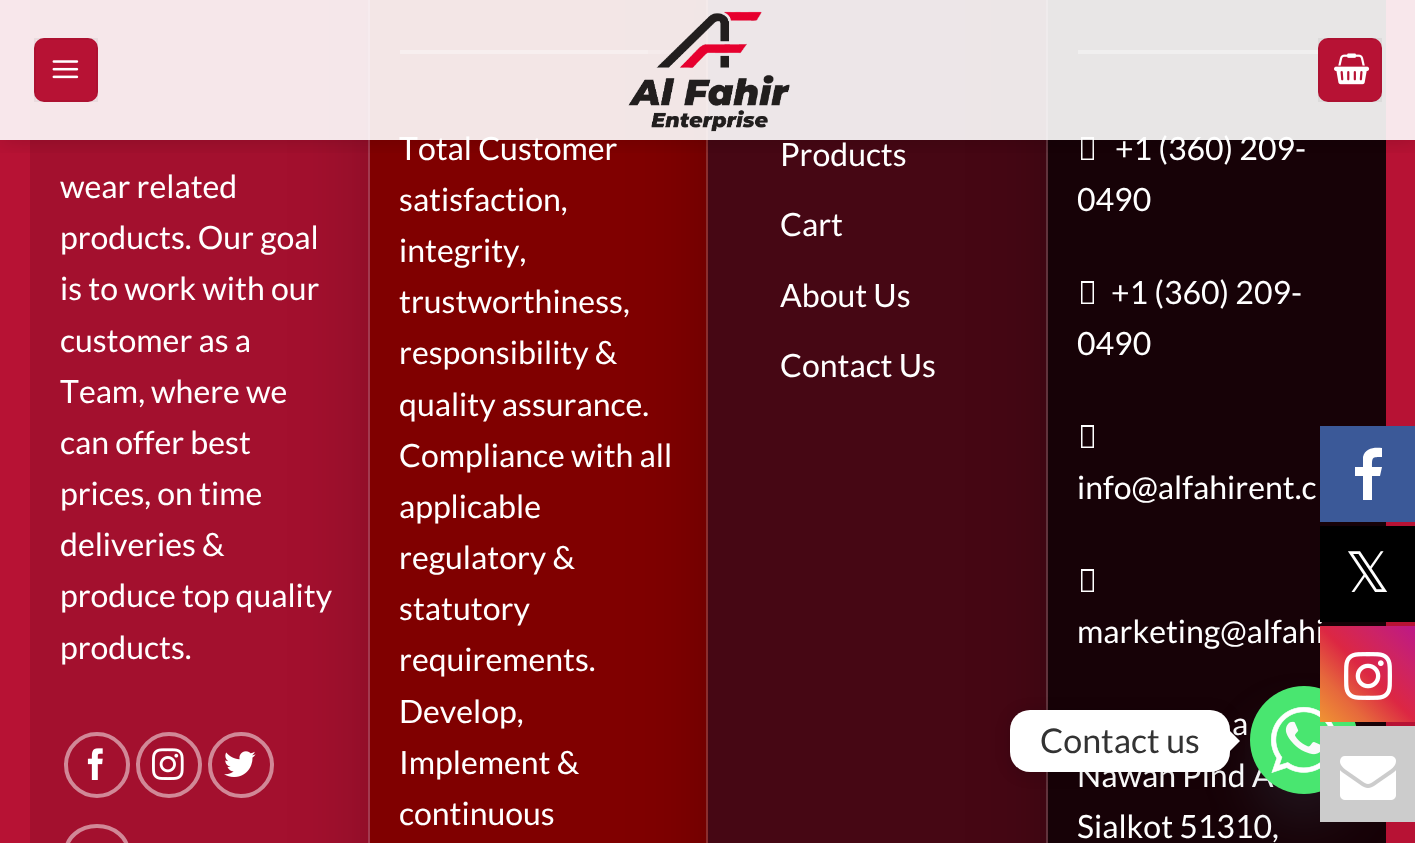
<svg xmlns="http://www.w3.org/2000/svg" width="1415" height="843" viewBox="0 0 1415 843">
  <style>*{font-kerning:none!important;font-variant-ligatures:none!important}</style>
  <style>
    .t1 { font: 32px Lato; fill: #fff; }
    .t2 { font: 56px DejaVu Sans; fill: #fff; }
    .t3 { font: 34px Lato; fill: #333; }
  </style>
  <defs>
    <clipPath id="clip1"><rect x="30" y="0" width="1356" height="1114"/></clipPath>
    <clipPath id="clip2"><rect x="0" y="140" width="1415" height="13"/></clipPath>
    <linearGradient id="g1" gradientUnits="userSpaceOnUse" x1="1320" y1="722" x2="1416" y2="626"><stop offset="0" stop-color="#f09433"/><stop offset="0.25" stop-color="#e6683c"/><stop offset="0.5" stop-color="#dc2743"/><stop offset="0.75" stop-color="#cc2366"/><stop offset="1" stop-color="#bc1888"/></linearGradient>
  </defs>
  <rect width="100%" height="100%" fill="#b71234"/>
  <rect x="30" y="0" width="338" height="843" fill="#a3102e"/>
  <rect x="368" y="0" width="2" height="843" fill="#b54058"/>
  <circle cx="241" cy="765" r="31" fill="none" stroke="#d18897" stroke-width="4"/>
  <image x="224" y="751" width="32" height="26" href="images/6.png"/>
  <rect x="370" y="-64" width="338" height="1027" fill="#00000033" filter="blur(40px)"/>
  <rect x="370" y="0" width="336" height="843" fill="#800000"/>
  <rect x="648" y="50" width="30" height="4" fill="#933"/>
  <rect x="400" y="50" width="248" height="4" fill="#ad5c5c"/>
  <rect x="706" y="0" width="2" height="843" fill="#933"/>
  <rect x="708" y="-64" width="340" height="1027" fill="#00000033" filter="blur(40px)"/>
  <rect x="708" y="0" width="338" height="843" fill="#460714"/>
  <rect x="1046" y="0" width="2" height="843" fill="#6b3943"/>
  <g clip-path="url(#clip1)">
    <rect x="1048" y="-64" width="338" height="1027" fill="#00000033" filter="blur(40px)"/>
  </g>
  <rect x="1048" y="0" width="338" height="843" fill="#170207"/>
  <rect x="1078" y="50" width="248" height="4" fill="#6a5d61"/>
  <path d="M1081 160V137H1094V160ZM1082.5 158.5H1092.5V139H1082.5Z" fill="#fff"/>
  <g clip-path="url(#clip2)">
    <rect x="2" y="2" width="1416" height="140" fill="#00000026" filter="blur(10px)"/>
  </g>
  <text x="399" y="160" class="t1">Total Customer</text>
  <text x="1115" y="160" class="t1">+1 (360) 209-</text>
  <rect x="0" y="0" width="1415" height="140" fill="#ffffffe6"/>
  <rect x="34" y="38" width="64" height="64" rx="10" fill="#b71234"/>
  <rect x="35" y="39" width="62" height="62" fill="none" stroke="#0000000d" stroke-width="2"/>
  <image x="52" y="60" width="27" height="19" href="images/1.png"/>
  <image x="628" y="11" width="162" height="121" href="images/2.png"/>
  <rect x="1318" y="38" width="64" height="64" rx="10" fill="#b71234"/>
  <rect x="1319" y="39" width="62" height="62" fill="none" stroke="#0000000d" stroke-width="2"/>
  <image x="1334" y="53" width="36" height="32" href="images/3.png"/>
  <text x="60" y="198" class="t1">wear related</text>
  <text x="60" y="249" class="t1">products. Our goal</text>
  <text x="60" y="300" class="t1">is to work with our</text>
  <text x="60" y="352" class="t1">customer as a</text>
  <text x="60" y="403" class="t1">Team, where we</text>
  <text x="60" y="454" class="t1">can offer best</text>
  <text x="60" y="505" class="t1">prices, on time</text>
  <text x="60" y="556" class="t1">deliveries &amp;</text>
  <text x="60" y="607" class="t1">produce top quality</text>
  <text x="60" y="659" class="t1">products.</text>
  <circle cx="97" cy="765" r="31" fill="none" stroke="#d18897" stroke-width="4"/>
  <image x="87" y="748" width="16" height="32" href="images/4.png"/>
  <circle cx="169" cy="765" r="31" fill="none" stroke="#d18897" stroke-width="4"/>
  <image x="152" y="748" width="32" height="32" href="images/5.png"/>
  <rect x="66" y="826" width="62" height="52" rx="31" fill="none" stroke="#d18897" stroke-width="4"/>
  <text x="399" y="211" class="t1">satisfaction,</text>
  <text x="399" y="262" class="t1">integrity,</text>
  <text x="399" y="313" class="t1">trustworthiness,</text>
  <text x="399" y="364" class="t1">responsibility &amp;</text>
  <text x="399" y="416" class="t1">quality assurance.</text>
  <text x="399" y="467" class="t1">Compliance with all</text>
  <text x="399" y="518" class="t1">applicable</text>
  <text x="399" y="569" class="t1">regulatory &amp;</text>
  <text x="399" y="620" class="t1">statutory</text>
  <text x="399" y="671" class="t1">requirements.</text>
  <text x="399" y="723" class="t1">Develop,</text>
  <text x="399" y="774" class="t1">Implement &amp;</text>
  <text x="399" y="825" class="t1">continuous</text>
  <text x="780" y="166" class="t1">Products</text>
  <text x="780" y="236" class="t1">Cart</text>
  <text x="780" y="307" class="t1">About Us</text>
  <text x="780" y="377" class="t1">Contact Us</text>
  <text x="1077" y="211" class="t1">0490</text>
  <path d="M1081 304V281H1094V304ZM1082.5 302.5H1092.5V283H1082.5Z" fill="#fff"/>
  <text x="1111" y="304" class="t1">+1 (360) 209-</text>
  <text x="1077" y="355" class="t1">0490</text>
  <path d="M1081 448V425H1094V448ZM1082.5 446.5H1092.5V427H1082.5Z" fill="#fff"/>
  <text x="1077" y="499" class="t1">info@alfahirent.c</text>
  <path d="M1081 592V569H1094V592ZM1082.5 590.5H1092.5V571H1082.5Z" fill="#fff"/>
  <text x="1077" y="643" class="t1">marketing@alfahi</text>
  <text x="1232" y="735" class="t1">a</text>
  <text x="1077" y="787" class="t1">Nawan Pind A</text>
  <text x="1077" y="838" class="t1">Sialkot 51310,</text>
  <rect x="1320" y="426" width="95" height="96" fill="#3b5998"/>
  <path d="M1382 448V457C1372 457 1372 457 1372 467H1382L1380 476H1372V500H1363V476H1355V467H1363V457C1365 448 1374 447 1382 448Z" fill="#fff"/>
  <rect x="1320" y="526" width="95" height="96" fill="#000"/>
  <text x="1345" y="592" class="t2">𝕏</text>
  <rect x="1250" y="718" width="108" height="108" rx="54" fill="#49687e29" filter="blur(24px)"/>
  <image x="1250" y="686" width="106" height="108" href="images/9.png"/>
  <rect x="1320" y="626" width="95" height="96" fill="url(#g1)"/>
  <image x="1344" y="652" width="48" height="48" href="images/7.png"/>
  <rect x="1320" y="726" width="95" height="96" fill="#ccc"/>
  <image x="1340" y="756" width="56" height="44" href="images/8.png"/>
  <rect x="1010" y="712" width="220" height="62" rx="20" fill="#00000026" filter="blur(7.5px)"/>
  <rect x="1010" y="710" width="220" height="62" rx="20" fill="#fff"/>
  <text x="1040" y="753" class="t3">Contact us</text>
  <path d="M1230 751V731L1240 741Z" fill="#fff"/>
</svg>
